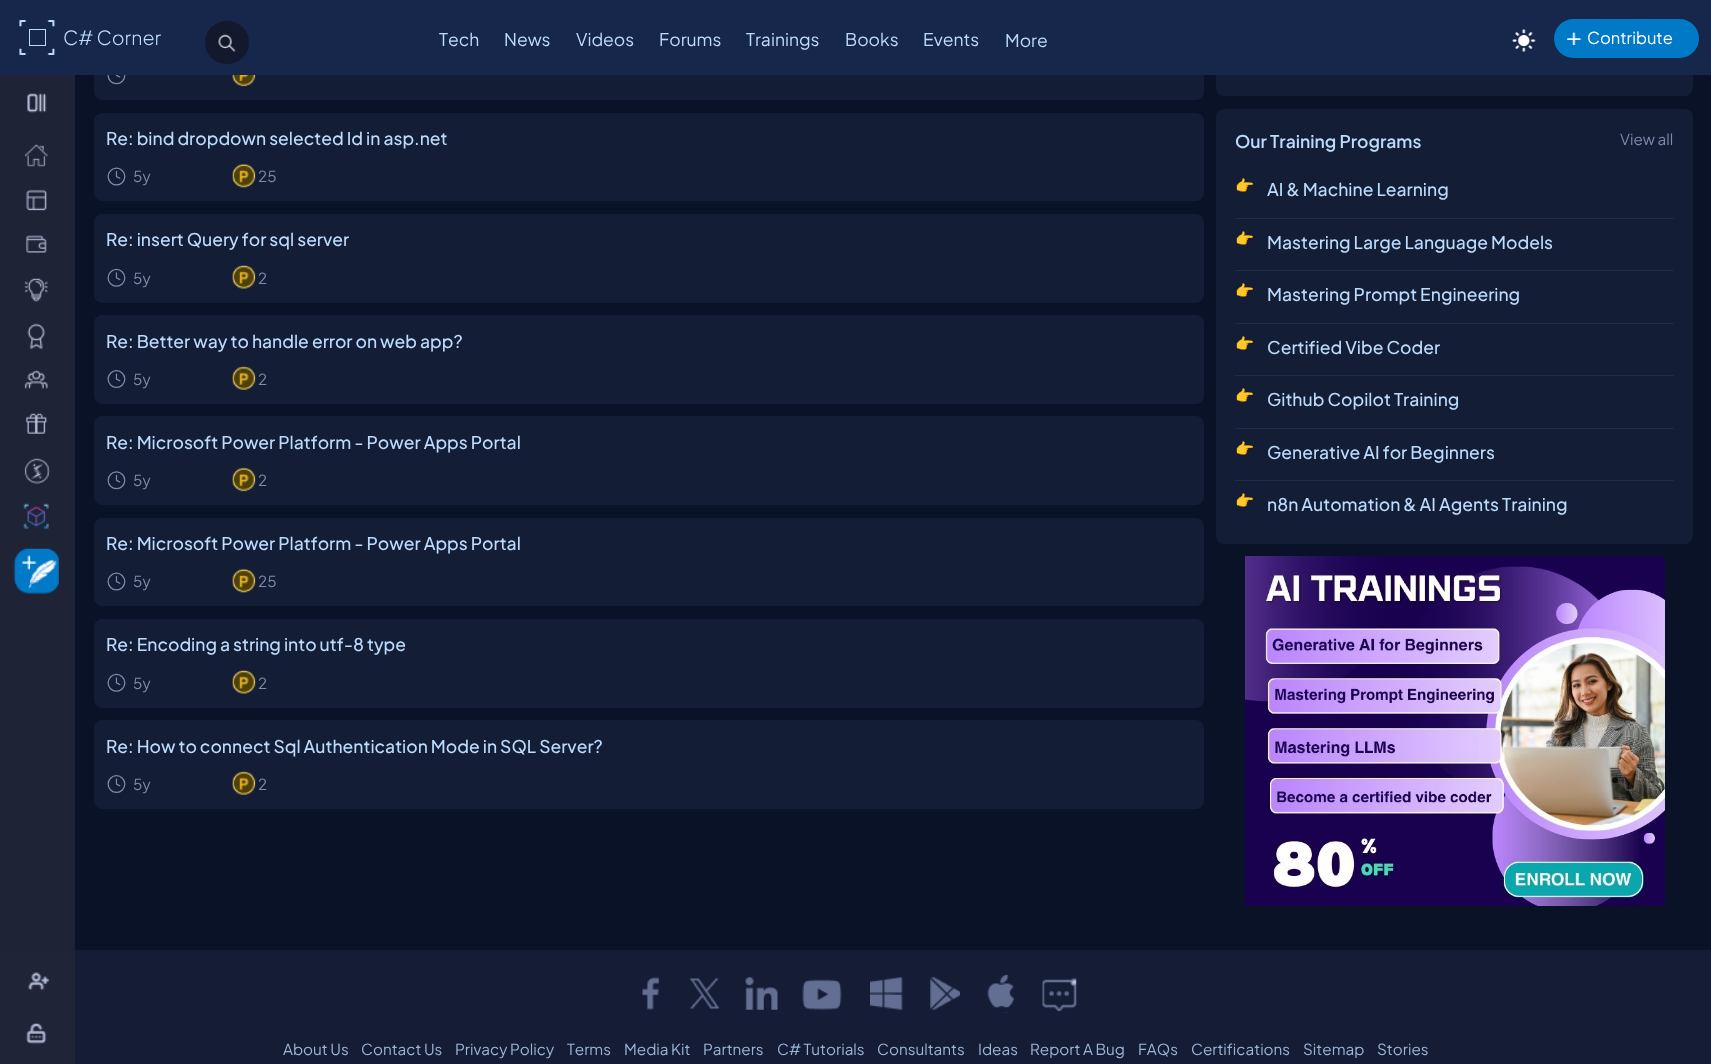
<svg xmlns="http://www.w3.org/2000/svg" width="1711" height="1064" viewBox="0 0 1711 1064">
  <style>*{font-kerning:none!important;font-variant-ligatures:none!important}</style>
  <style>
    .t1 { font: 300 19.5px Plus Jakarta Sans; fill: #bcdbfe; }
    .t2 { font: 17.5px Plus Jakarta Sans; fill: #bcdbfe; }
    .t3 { font: 16.5px Plus Jakarta Sans; fill: #fff; }
    .t4 { font: 500 17.5px Plus Jakarta Sans; fill: #bcdbfe; }
    .t5 { font: 15.25px Plus Jakarta Sans; fill: #7f8aab; }
    .t6 { font: 600 17.5px Plus Jakarta Sans; fill: #bcdbfe; }
    .t7 { font: 15.25px Noto Color Emoji; fill: #9ab9dc; }
    .t8 { font: 15.25px Plus Jakarta Sans; fill: #9bb5d6; }
  </style>
  <rect width="100%" height="100%" fill="#091227"/>
  <rect x="0" y="75" width="75" height="875" fill="#1e2435"/>
  <rect x="94" y="11" width="1110" height="89" rx="8" fill="#141d36"/>
  <rect x="1216" y="-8" width="477" height="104" rx="8" fill="#141d36"/>
  <rect x="0" y="0" width="1711" height="75" fill="#17264b"/>
  <image x="19" y="20" width="36" height="35" href="images/1.png"/>
  <rect x="29.45" y="29.45" width="16.1" height="16.1" fill="none" stroke="#bcdbfe" stroke-width="0.9"/>
  <rect x="29.45" y="29.45" width="16.1" height="16.1" fill="none" stroke="#bcdbfe" stroke-width="0.9"/>
  <text x="63" y="45" class="t1">C# Corner</text>
  <rect x="205" y="21" width="44" height="43" rx="21.5" fill="#12192d"/>
  <image x="218" y="34" width="18" height="18" href="images/2.png"/>
  <text x="439" y="46" class="t2">Tech</text>
  <text x="504" y="46" class="t2">News</text>
  <text x="576" y="46" class="t2">Videos</text>
  <text x="659" y="46" class="t2">Forums</text>
  <text x="746" y="46" class="t2">Trainings</text>
  <text x="845" y="46" class="t2">Books</text>
  <text x="923" y="46" class="t2">Events</text>
  <text x="1005" y="47" class="t2">More</text>
  <image x="1512" y="29" width="24" height="23" href="images/3.png"/>
  <rect x="1554" y="19" width="145" height="39" rx="19.5" fill="#0079c7"/>
  <image x="1566" y="32" width="16" height="13" href="images/4.png"/>
  <text x="1587" y="44" class="t3">Contribute</text>
  <image x="27" y="93" width="20" height="20" href="images/5.png"/>
  <image x="24" y="143" width="24" height="24" href="images/6.png"/>
  <image x="26" y="189" width="21" height="22" href="images/7.png"/>
  <image x="26" y="235" width="21" height="18" href="images/8.png"/>
  <image x="24" y="278" width="24" height="24" href="images/9.png"/>
  <image x="27" y="323" width="19" height="26" href="images/10.png"/>
  <image x="24" y="370" width="24" height="19" href="images/11.png"/>
  <image x="26" y="413" width="21" height="21" href="images/12.png"/>
  <image x="24" y="458" width="27" height="26" href="images/13.png"/>
  <image x="23" y="503" width="26" height="26" href="images/14.png"/>
  <image x="13" y="548" width="46" height="46" href="images/15.png"/>
  <rect x="0" y="950" width="75" height="114" fill="#1f2536"/>
  <image x="28" y="972" width="22" height="19" href="images/16.png"/>
  <image x="26" y="1022" width="21" height="22" href="images/17.png"/>
  <image x="107" y="75" width="19" height="10" href="images/18.png"/>
  <image x="232" y="75" width="24" height="12" href="images/19.png"/>
  <rect x="94" y="113" width="1110" height="88" rx="8" fill="#141d36"/>
  <text x="106" y="145" class="t4">Re: bind dropdown selected Id in asp.net</text>
  <image x="107" y="167" width="19" height="19" href="images/20.png"/>
  <text x="133" y="182" class="t5">5y</text>
  <image x="232" y="163" width="24" height="25" href="images/21.png"/>
  <text x="258" y="182" class="t5">25</text>
  <rect x="94" y="214" width="1110" height="89" rx="8" fill="#141d36"/>
  <text x="106" y="246" class="t4">Re: insert Query for sql server</text>
  <image x="107" y="268" width="19" height="19" href="images/22.png"/>
  <text x="133" y="284" class="t5">5y</text>
  <image x="232" y="265" width="24" height="24" href="images/23.png"/>
  <text x="258" y="284" class="t5">2</text>
  <rect x="94" y="315" width="1110" height="89" rx="8" fill="#141d36"/>
  <text x="106" y="348" class="t4">Re: Better way to handle error on web app?</text>
  <image x="107" y="370" width="19" height="18" href="images/24.png"/>
  <text x="133" y="385" class="t5">5y</text>
  <image x="232" y="366" width="24" height="24" href="images/25.png"/>
  <text x="258" y="385" class="t5">2</text>
  <rect x="94" y="416" width="1110" height="89" rx="8" fill="#141d36"/>
  <text x="106" y="449" class="t4">Re: Microsoft Power Platform - Power Apps Portal</text>
  <image x="107" y="471" width="19" height="19" href="images/26.png"/>
  <text x="133" y="486" class="t5">5y</text>
  <image x="232" y="467" width="24" height="25" href="images/27.png"/>
  <text x="258" y="486" class="t5">2</text>
  <rect x="94" y="518" width="1110" height="88" rx="8" fill="#141d36"/>
  <text x="106" y="550" class="t4">Re: Microsoft Power Platform - Power Apps Portal</text>
  <image x="107" y="572" width="19" height="19" href="images/28.png"/>
  <text x="133" y="587" class="t5">5y</text>
  <image x="232" y="568" width="24" height="25" href="images/29.png"/>
  <text x="258" y="587" class="t5">25</text>
  <rect x="94" y="619" width="1110" height="89" rx="8" fill="#141d36"/>
  <text x="106" y="651" class="t4">Re: Encoding a string into utf-8 type</text>
  <image x="107" y="673" width="19" height="19" href="images/22.png"/>
  <text x="133" y="689" class="t5">5y</text>
  <image x="232" y="670" width="24" height="24" href="images/30.png"/>
  <text x="258" y="689" class="t5">2</text>
  <rect x="94" y="720" width="1110" height="89" rx="8" fill="#141d36"/>
  <text x="106" y="753" class="t4">Re: How to connect Sql Authentication Mode in SQL Server?</text>
  <image x="107" y="775" width="19" height="18" href="images/24.png"/>
  <text x="133" y="790" class="t5">5y</text>
  <image x="232" y="771" width="24" height="24" href="images/31.png"/>
  <text x="258" y="790" class="t5">2</text>
  <rect x="1216" y="109" width="477" height="435" rx="8" fill="#141d36"/>
  <text x="1235" y="148" class="t6">Our Training Programs</text>
  <text x="1620" y="145" class="t5">View all</text>
  <rect x="1235" y="218" width="439" height="1" fill="#212d47"/>
  <text x="1235" y="191" class="t7">👉</text>
  <text x="1267" y="196" class="t4">AI &amp; Machine Learning</text>
  <rect x="1235" y="270" width="439" height="1" fill="#212d47"/>
  <text x="1235" y="244" class="t7">👉</text>
  <text x="1267" y="249" class="t4">Mastering Large Language Models</text>
  <rect x="1235" y="323" width="439" height="1" fill="#212d47"/>
  <text x="1235" y="296" class="t7">👉</text>
  <text x="1267" y="301" class="t4">Mastering Prompt Engineering</text>
  <rect x="1235" y="375" width="439" height="1" fill="#212d47"/>
  <text x="1235" y="349" class="t7">👉</text>
  <text x="1267" y="354" class="t4">Certified Vibe Coder</text>
  <rect x="1235" y="428" width="439" height="1" fill="#212d47"/>
  <text x="1235" y="401" class="t7">👉</text>
  <text x="1267" y="406" class="t4">Github Copilot Training</text>
  <rect x="1235" y="480" width="439" height="1" fill="#212d47"/>
  <text x="1235" y="454" class="t7">👉</text>
  <text x="1267" y="459" class="t4">Generative AI for Beginners</text>
  <text x="1235" y="506" class="t7">👉</text>
  <text x="1267" y="511" class="t4">n8n Automation &amp; AI Agents Training</text>
  <image x="1245" y="556" width="420" height="350" href="images/32.png"/>
  <rect x="75" y="950" width="1636" height="114" fill="#151c36"/>
  <image x="642" y="977" width="17" height="33" href="images/33.png"/>
  <image x="690" y="978" width="30" height="31" href="images/34.png"/>
  <image x="745" y="977" width="33" height="33" href="images/35.png"/>
  <image x="802" y="979" width="40" height="31" href="images/36.png"/>
  <image x="870" y="977" width="33" height="33" href="images/37.png"/>
  <image x="930" y="977" width="30" height="33" href="images/38.png"/>
  <image x="987" y="974" width="27" height="39" href="images/39.png"/>
  <image x="1042" y="978" width="35" height="34" href="images/40.png"/>
  <text x="283" y="1055" class="t8">About Us</text>
  <text x="361" y="1055" class="t8">Contact Us</text>
  <text x="455" y="1055" class="t8">Privacy Policy</text>
  <text x="567" y="1055" class="t8">Terms</text>
  <text x="624" y="1055" class="t8">Media Kit</text>
  <text x="703" y="1055" class="t8">Partners</text>
  <text x="777" y="1055" class="t8">C# Tutorials</text>
  <text x="877" y="1055" class="t8">Consultants</text>
  <text x="978" y="1055" class="t8">Ideas</text>
  <text x="1030" y="1055" class="t8">Report A Bug</text>
  <text x="1138" y="1055" class="t8">FAQs</text>
  <text x="1191" y="1055" class="t8">Certifications</text>
  <text x="1303" y="1055" class="t8">Sitemap</text>
  <text x="1377" y="1055" class="t8">Stories</text>
</svg>
